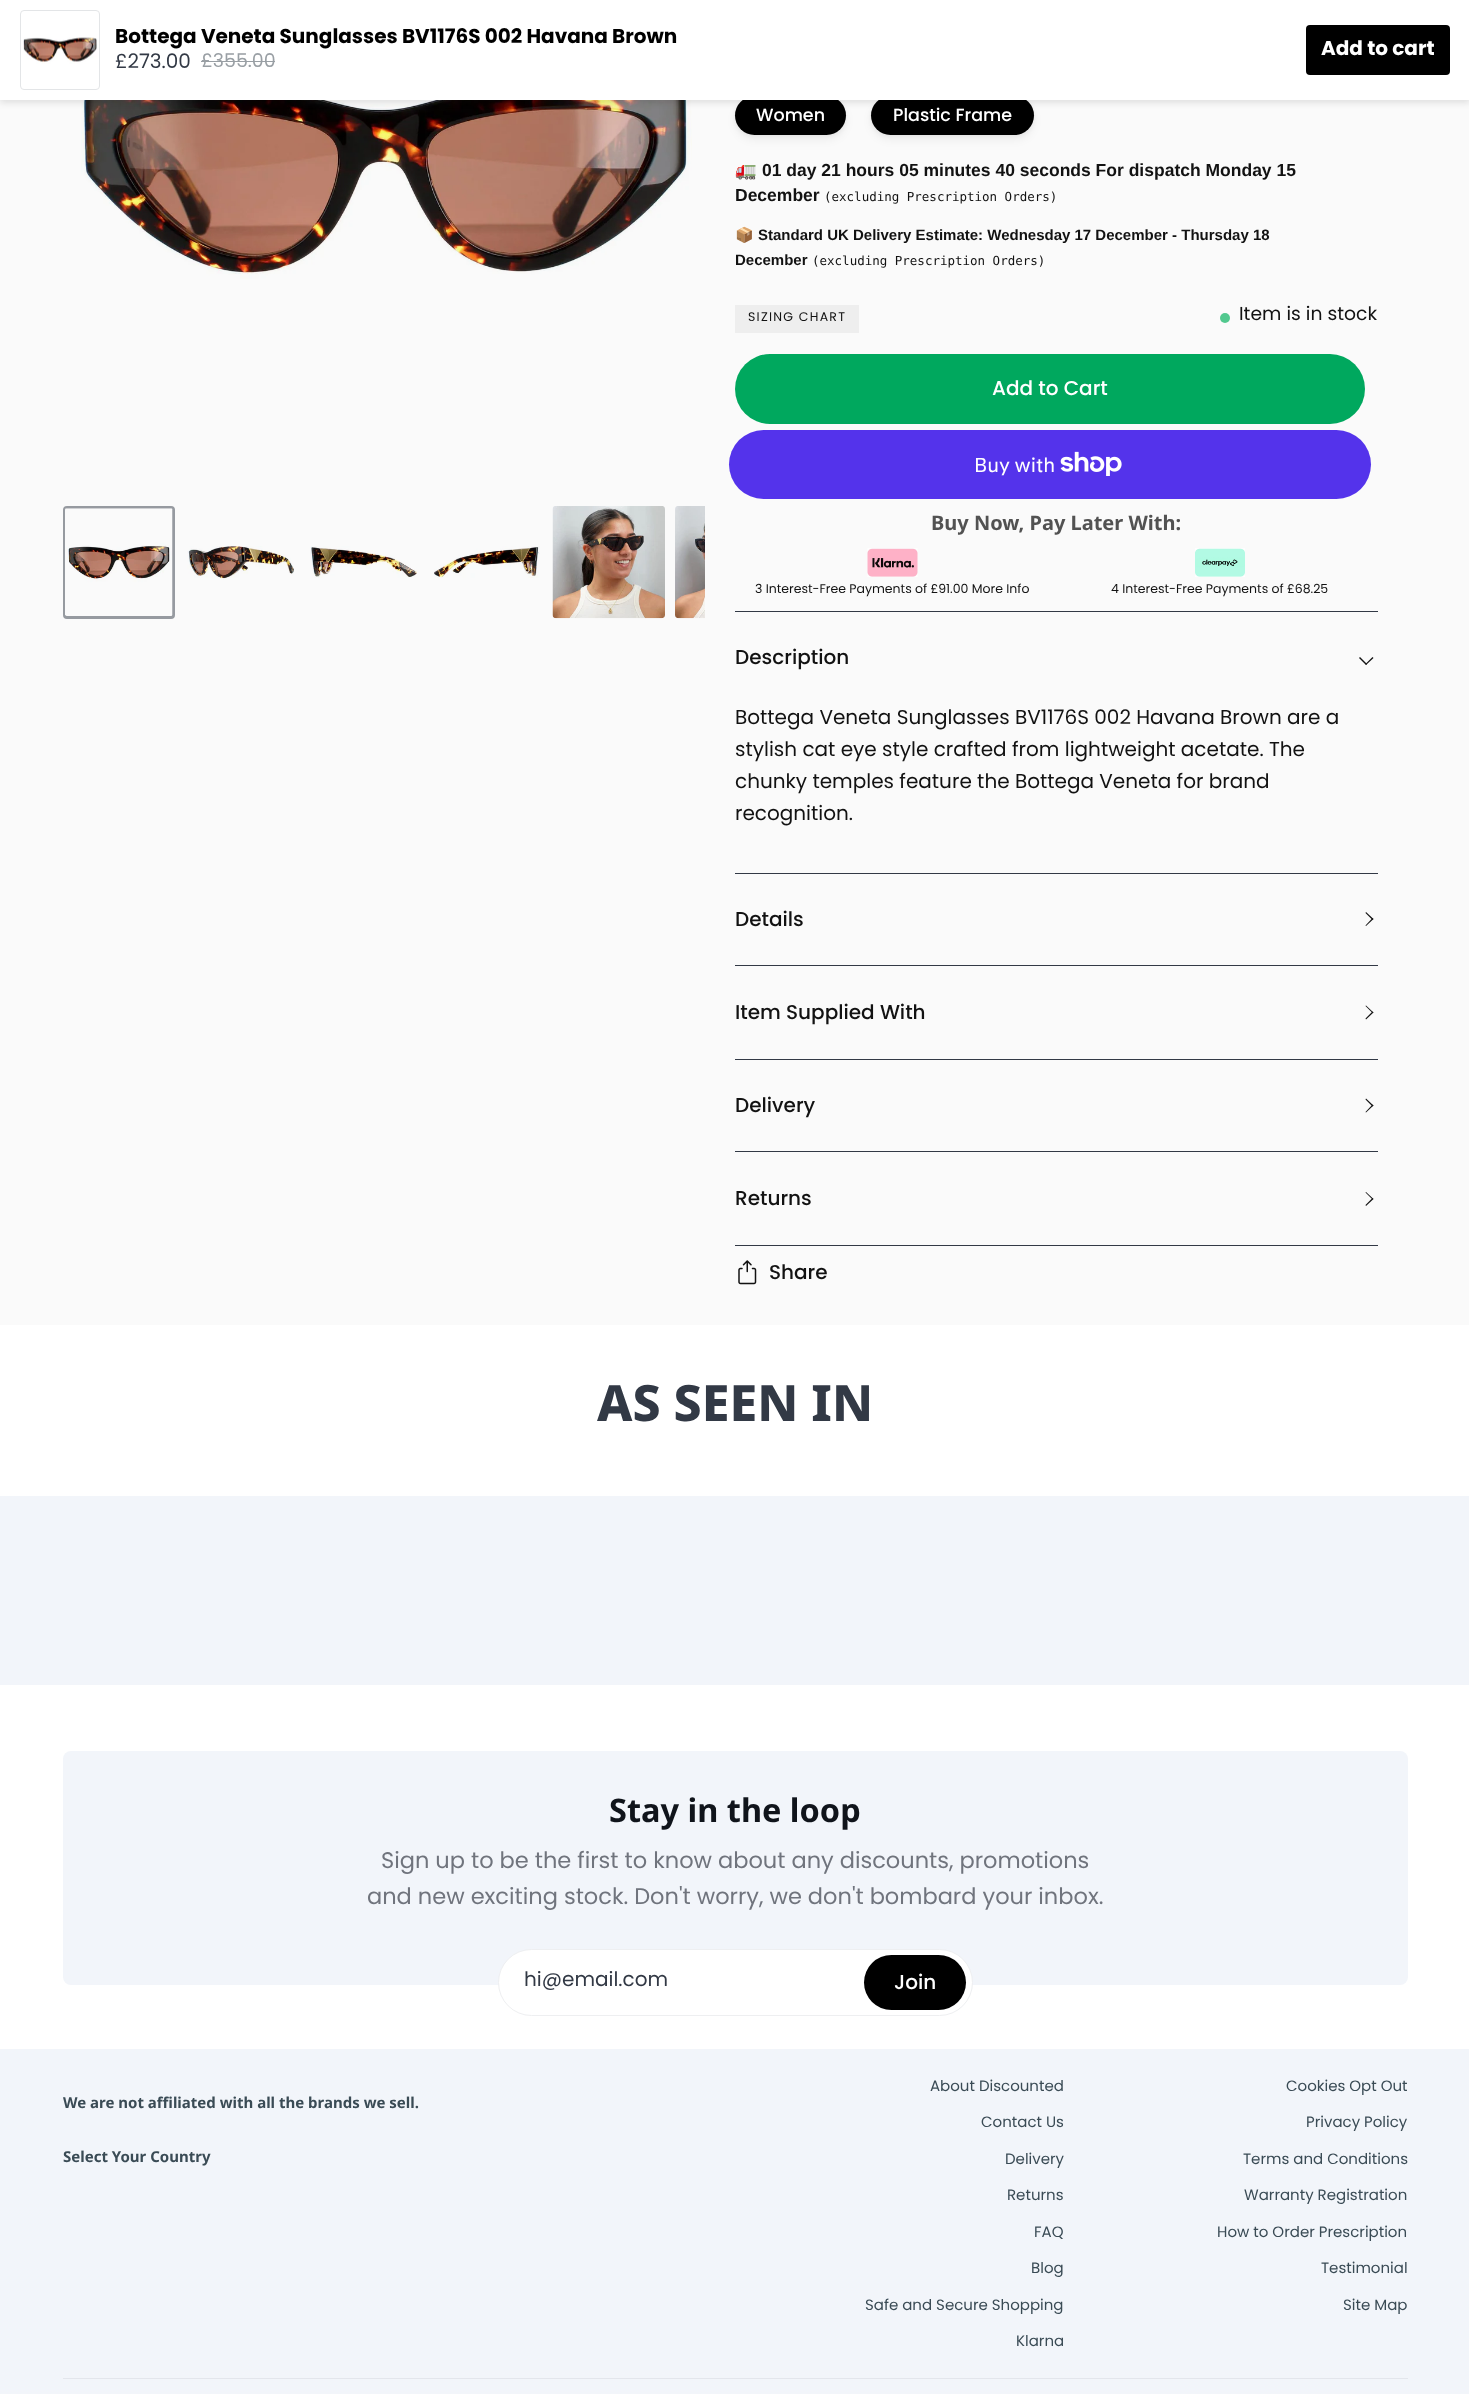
<svg xmlns="http://www.w3.org/2000/svg" width="1469" height="2394" viewBox="0 0 1469 2394">
  <style>
    .t1 { font: bold 20px Poppins; fill: #000; }
    .t2 { font: 20px Poppins; fill: #323945; }
    .t3 { font: 19px Poppins; fill: #999fa4; }
    .t4 { font: bold 20px Poppins; fill: #fff; }
    .t5 { font: 500 17.5px Poppins; fill: #fff; }
    .t6 { font: 17.5px Noto Color Emoji; fill: #121212; }
    .t7 { font: bold 17.5px Liberation Sans; fill: #121212; }
    .t8 { font: 12.5px DejaVu Sans Mono; fill: #121212; }
    .t9 { font: 15px Noto Color Emoji; fill: #121212; }
    .t10 { font: bold 15px Liberation Sans; fill: #121212; }
    .t11 { font: 12.5px Poppins; letter-spacing: 1.25px; fill: #121212; }
    .t12 { font: 18.75px Poppins; fill: #121212; }
    .t13 { font: 500 20px Poppins; fill: #fff; }
    .t14 { font: 20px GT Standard; fill: #fff; }
    .t15 { font: bold 20px Noto Sans; fill: #525252; }
    .t16 { font: 12.5px Poppins; fill: #121212; }
    .t17 { font: 500 20px Poppins; fill: #121212; }
    .t18 { font: 20px Poppins; fill: #121212; }
    .t19 { font: 800 50px Noto Sans; fill: #323945; }
    .t20 { font: bold 32.5px Noto Sans; fill: #10141b; }
    .t21 { font: 22.5px Poppins; fill: #70747d; }
    .t22 { font: bold 15px Noto Sans; fill: #3a4b55; }
    .t23 { font: 15px Poppins; fill: #3a4b55; }
  </style>
  <defs>
    <clipPath id="clip1"><rect x="524" y="1971" width="320" height="20"/></clipPath>
  </defs>
  <rect width="100%" height="100%" fill="#fff"/>
  <rect x="0" y="100" width="1469" height="1225" fill="#fafafa"/>
  <image x="81" y="100" width="611" height="179" href="images/2.png"/>
  <rect x="735" y="98" width="111" height="38" rx="19" fill="#0000000d" filter="blur(2px)"/>
  <rect x="735" y="101" width="111" height="39" rx="19.5" fill="#0000000d" filter="blur(4px)"/>
  <rect x="735" y="96" width="111" height="39" rx="19.5" fill="#000"/>
  <rect x="871" y="98" width="163" height="38" rx="19" fill="#0000000d" filter="blur(2px)"/>
  <rect x="871" y="101" width="163" height="39" rx="19.5" fill="#0000000d" filter="blur(4px)"/>
  <rect x="871" y="96" width="163" height="39" rx="19.5" fill="#000"/>
  <rect x="0" y="3" width="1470" height="100" fill="#0000001a" filter="blur(3px)"/>
  <rect x="0" y="0" width="1469" height="100" fill="#fff"/>
  <image x="23" y="37" width="75" height="27" href="images/1.png"/>
  <rect x="20.5" y="10.5" width="79" height="79" rx="3.5" fill="none" stroke="#e3e5e7"/>
  <text x="115" y="43" class="t1">Bottega Veneta Sunglasses BV1176S 002 Havana Brown</text>
  <text x="115" y="68" class="t2">£273.00</text>
  <text x="201" y="67" class="t3">£355.00</text>
  <rect x="201" y="61" width="74" height="1" fill="#999fa4"/>
  <rect x="1306" y="25" width="144" height="50" rx="4" fill="#000"/>
  <text x="1321" y="55" class="t4">Add to cart</text>
  <rect x="64.5" y="507.5" width="109" height="110" rx="2.5" fill="none" stroke="#969aa0" stroke-width="3"/>
  <image x="65" y="508" width="108" height="108" href="images/3.png"/>
  <image x="187" y="546" width="107" height="34" href="images/4.png"/>
  <image x="310" y="546" width="107" height="32" href="images/5.png"/>
  <image x="434" y="546" width="106" height="32" href="images/6.png"/>
  <image x="552" y="506" width="113" height="113" href="images/7.png"/>
  <image x="675" y="506" width="30" height="113" href="images/8.png"/>
  <text x="756" y="121" class="t5">Women</text>
  <text x="893" y="121" class="t5">Plastic Frame</text>
  <text x="735" y="176" class="t6">🚛</text>
  <text x="762" y="176" class="t7">01 day 21 hours 05 minutes 40 seconds For dispatch Monday 15</text>
  <text x="735" y="201" class="t7">December</text>
  <text x="824" y="201" class="t8">(excluding Prescription Orders)</text>
  <text x="735" y="240" class="t9">📦</text>
  <text x="758" y="240" class="t10">Standard UK Delivery Estimate: Wednesday 17 December - Thursday 18</text>
  <text x="735" y="265" class="t10">December</text>
  <text x="812" y="265" class="t8">(excluding Prescription Orders)</text>
  <rect x="735" y="305" width="124" height="28" fill="#eee"/>
  <text x="748" y="321" class="t11">SIZING CHART</text>
  <circle cx="1225" cy="318" r="5" fill="#51c88e"/>
  <text x="1239" y="320" class="t12">Item is in stock</text>
  <rect x="735" y="354" width="630" height="70" rx="35" fill="#00a85e"/>
  <text x="992" y="395" class="t13">Add to Cart</text>
  <rect x="729" y="430" width="642" height="69" rx="34.5" fill="#5433eb"/>
  <text x="974" y="472" class="t14">Buy with</text>
  <image x="1060" y="451" width="62" height="25" href="images/9.png"/>
  <text x="931" y="530" class="t15">Buy Now, Pay Later With:</text>
  <image x="867" y="548" width="51" height="29" href="images/10.png"/>
  <text x="755" y="593" class="t16">3 Interest-Free Payments of £91.00 More Info</text>
  <image x="1195" y="548" width="50" height="29" href="images/11.png"/>
  <text x="1111" y="593" class="t16">4 Interest-Free Payments of £68.25</text>
  <rect x="735" y="611" width="643" height="1" fill="#323945"/>
  <rect x="735" y="873" width="643" height="1" fill="#323945"/>
  <text x="735" y="664" class="t17">Description</text>
  <path d="M1365.5 664L1372.5 657L1373.5 658L1366 665Z" fill="#121212"/>
  <path d="M1359 658L1360 657L1367 664L1366 665Z" fill="#121212"/>
  <text x="735" y="724" class="t18">Bottega Veneta Sunglasses BV1176S 002 Havana Brown are a</text>
  <text x="735" y="756" class="t18">stylish cat eye style crafted from lightweight acetate. The</text>
  <text x="735" y="788" class="t18">chunky temples feature the Bottega Veneta for brand</text>
  <text x="735" y="820" class="t18">recognition.</text>
  <rect x="735" y="965" width="643" height="1" fill="#323945"/>
  <text x="735" y="926" class="t17">Details</text>
  <path d="M1372.5 920L1365.5 913L1366 912L1373.5 919Z" fill="#121212"/>
  <path d="M1366 926L1365.5 925.5L1372.5 918L1373.5 919Z" fill="#121212"/>
  <rect x="735" y="1059" width="643" height="1" fill="#323945"/>
  <text x="735" y="1019" class="t17">Item Supplied With</text>
  <path d="M1372.5 1013L1365.5 1006L1366 1005.5L1373.5 1012.5Z" fill="#121212"/>
  <path d="M1366 1019.5L1365.5 1018.5L1372.5 1011.5L1373.5 1012.5Z" fill="#121212"/>
  <rect x="735" y="1151" width="643" height="1" fill="#323945"/>
  <text x="735" y="1112" class="t17">Delivery</text>
  <path d="M1372.5 1106.5L1365.5 1099.5L1366 1098.5L1373.5 1105.5Z" fill="#121212"/>
  <path d="M1366 1112.5L1365.5 1112L1372.5 1104.5L1373.5 1105.5Z" fill="#121212"/>
  <rect x="735" y="1245" width="643" height="1" fill="#323945"/>
  <text x="735" y="1205" class="t17">Returns</text>
  <path d="M1372.5 1199.5L1365.5 1192.5L1366 1192L1373.5 1199Z" fill="#121212"/>
  <path d="M1366 1206L1365.5 1205L1372.5 1198L1373.5 1199Z" fill="#121212"/>
  <image x="738" y="1260" width="19" height="25" href="images/12.png"/>
  <text x="769" y="1279" class="t17">Share</text>
  <text x="597" y="1421" class="t19">AS SEEN IN</text>
  <rect x="0" y="1496" width="1469" height="189" fill="#f2f5fa"/>
  <rect x="63" y="1751" width="1345" height="234" rx="8" fill="#f2f5fa"/>
  <text x="609" y="1822" class="t20">Stay in the loop</text>
  <text x="381" y="1868" class="t21">Sign up to be the first to know about any discounts, promotions</text>
  <text x="367" y="1904" class="t21">and new exciting stock. Don't worry, we don't bombard your inbox.</text>
  <rect x="498.5" y="1949.5" width="474" height="66" rx="33" fill="#fff" stroke="#eeeff1"/>
  <g clip-path="url(#clip1)">
    <text x="524" y="1986" class="t2">hi@email.com</text>
  </g>
  <rect x="864" y="1955" width="102" height="55" rx="27.5" fill="#000"/>
  <text x="894" y="1989" class="t13">Join</text>
  <rect x="0" y="2049" width="1469" height="345" fill="#f2f5fa"/>
  <text x="63" y="2108" class="t22">We are not affiliated with all the brands we sell.</text>
  <text x="63" y="2162" class="t22">Select Your Country</text>
  <text x="930" y="2091" class="t23">About Discounted</text>
  <text x="981" y="2127" class="t23">Contact Us</text>
  <text x="1005" y="2164" class="t23">Delivery</text>
  <text x="1007" y="2200" class="t23">Returns</text>
  <text x="1034" y="2237" class="t23">FAQ</text>
  <text x="1031" y="2273" class="t23">Blog</text>
  <text x="865" y="2310" class="t23">Safe and Secure Shopping</text>
  <text x="1016" y="2346" class="t23">Klarna</text>
  <text x="1286" y="2091" class="t23">Cookies Opt Out</text>
  <text x="1306" y="2127" class="t23">Privacy Policy</text>
  <text x="1243" y="2164" class="t23">Terms and Conditions</text>
  <text x="1244" y="2200" class="t23">Warranty Registration</text>
  <text x="1217" y="2237" class="t23">How to Order Prescription</text>
  <text x="1321" y="2273" class="t23">Testimonial</text>
  <text x="1343" y="2310" class="t23">Site Map</text>
  <rect x="63" y="2378" width="1345" height="1" fill="#e3e6ec"/>
</svg>
